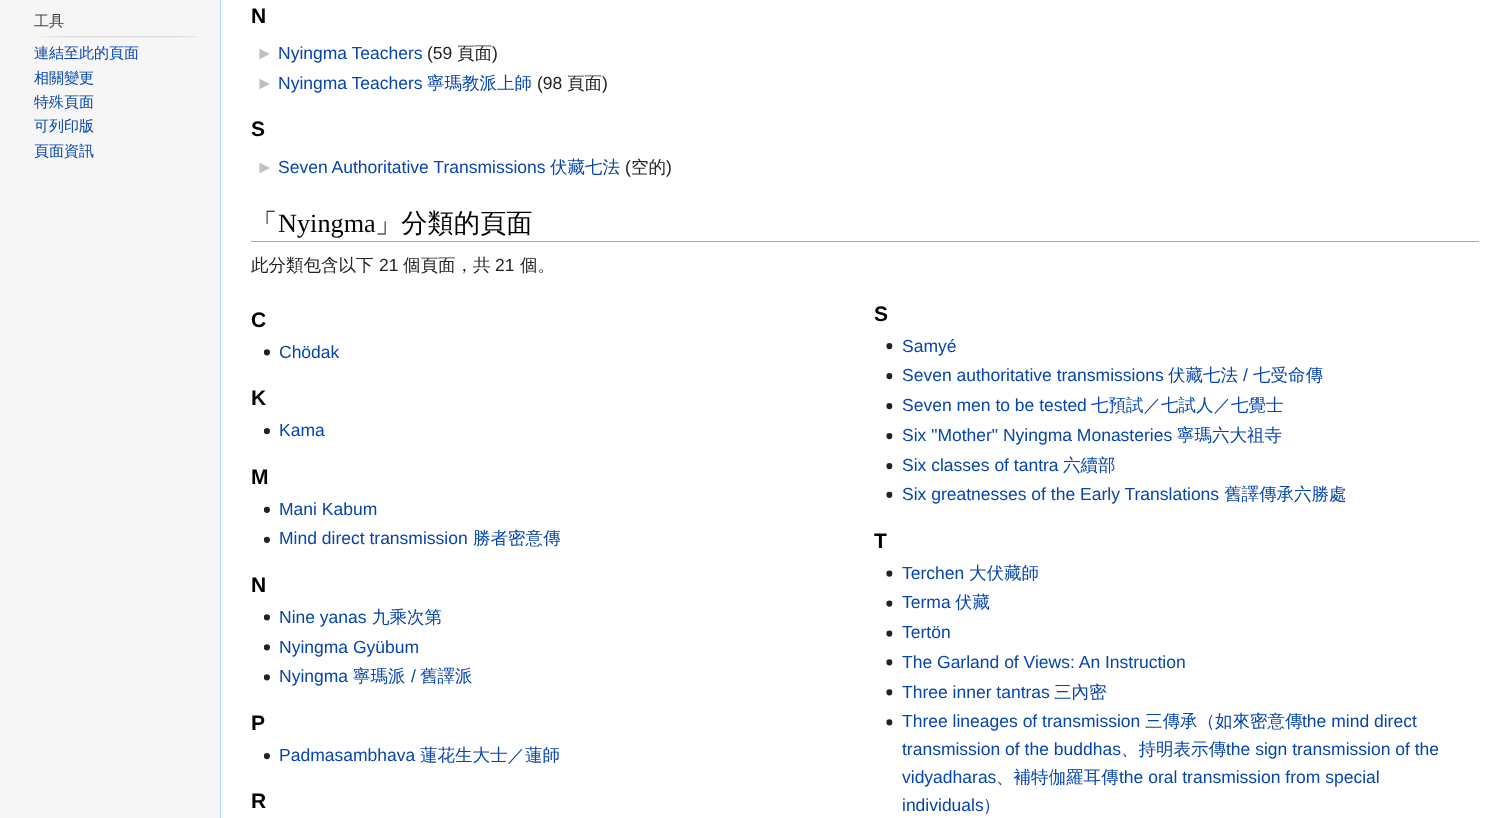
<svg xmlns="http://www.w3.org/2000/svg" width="1508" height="818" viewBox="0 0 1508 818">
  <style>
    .t1 { font: 500 15px WenQuanYi Zen Hei; fill: #444; }
    .t2 { font: 500 15px WenQuanYi Zen Hei; fill: #0645ad; }
    .t3 { font: bold 21px Liberation Sans; fill: #000; }
    .t4 { font: 17.5px Liberation Sans; fill: #c0c0c0; }
    .t5 { font: 17.5px Liberation Sans; fill: #0645ad; }
    .t6 { font: 17.5px Liberation Sans; fill: #222; }
    .t7 { font: 500 17.5px WenQuanYi Zen Hei; fill: #222; }
    .t8 { font: 500 17.5px WenQuanYi Zen Hei; fill: #0645ad; }
    .t9 { font: 500 26.25px WenQuanYi Zen Hei; fill: #000; }
    .t10 { font: 26.25px Liberation Serif; fill: #000; }
  </style>
  <rect width="100%" height="100%" fill="#f6f6f6"/>
  <text x="34" y="26" class="t1">工具</text>
  <image x="37" y="36" width="161" height="2" href="images/1.png"/>
  <text x="34" y="58" class="t2">連結至此的頁面</text>
  <text x="34" y="83" class="t2">相關變更</text>
  <text x="34" y="107" class="t2">特殊頁面</text>
  <text x="34" y="131" class="t2">可列印版</text>
  <text x="34" y="156" class="t2">頁面資訊</text>
  <rect x="221" y="0" width="1287" height="818" fill="#fff"/>
  <rect x="220" y="0" width="1" height="818" fill="#a7d7f9"/>
  <text x="251" y="23" class="t3">N</text>
  <text x="256" y="59" class="t4">►</text>
  <text x="278" y="59" class="t5">Nyingma Teachers</text>
  <text x="427" y="59" class="t6">(59</text>
  <text x="457" y="59" class="t7">頁面</text>
  <text x="492" y="59" class="t6">)</text>
  <text x="256" y="89" class="t4">►</text>
  <text x="278" y="89" class="t5">Nyingma Teachers</text>
  <text x="427" y="89" class="t8">寧瑪教派上師</text>
  <text x="537" y="89" class="t6">(98</text>
  <text x="567" y="89" class="t7">頁面</text>
  <text x="602" y="89" class="t6">)</text>
  <text x="251" y="136" class="t3">S</text>
  <text x="256" y="173" class="t4">►</text>
  <text x="278" y="173" class="t5">Seven Authoritative Transmissions</text>
  <text x="550" y="173" class="t8">伏藏七法</text>
  <text x="625" y="173" class="t6">(</text>
  <text x="631" y="173" class="t7">空的</text>
  <text x="666" y="173" class="t6">)</text>
  <rect x="251" y="241" width="1228" height="1" fill="#a2a9b1"/>
  <text x="251" y="232" class="t9">「</text>
  <text x="278" y="232" class="t10">Nyingma</text>
  <text x="375" y="232" class="t9">」分類的頁面</text>
  <text x="251" y="271" class="t7">此分類包含以下</text>
  <text x="379" y="271" class="t6">21</text>
  <text x="403" y="271" class="t7">個頁面，共</text>
  <text x="495" y="271" class="t6">21</text>
  <text x="520" y="271" class="t7">個。</text>
  <text x="251" y="327" class="t3">C</text>
  <image x="264" y="349" width="6" height="7" href="images/2.png"/>
  <text x="279" y="358" class="t5">Chödak</text>
  <text x="874" y="321" class="t3">S</text>
  <image x="886" y="343" width="7" height="7" href="images/3.png"/>
  <text x="902" y="352" class="t5">Samyé</text>
  <image x="886" y="373" width="7" height="7" href="images/3.png"/>
  <text x="902" y="381" class="t5">Seven authoritative transmissions</text>
  <text x="1168" y="381" class="t8">伏藏七法</text>
  <text x="1243" y="381" class="t5">/</text>
  <text x="1253" y="381" class="t8">七受命傳</text>
  <image x="886" y="403" width="7" height="7" href="images/3.png"/>
  <text x="902" y="411" class="t5">Seven men to be tested</text>
  <text x="1091" y="411" class="t8">七預試／七試人／七覺士</text>
  <image x="886" y="433" width="7" height="7" href="images/3.png"/>
  <text x="902" y="441" class="t5">Six "Mother" Nyingma Monasteries</text>
  <text x="1177" y="441" class="t8">寧瑪六大祖寺</text>
  <image x="886" y="463" width="7" height="7" href="images/3.png"/>
  <text x="902" y="471" class="t5">Six classes of tantra</text>
  <text x="1063" y="471" class="t8">六續部</text>
  <image x="886" y="491" width="7" height="7" href="images/4.png"/>
  <text x="902" y="500" class="t5">Six greatnesses of the Early Translations</text>
  <text x="1224" y="500" class="t8">舊譯傳承六勝處</text>
  <text x="251" y="405" class="t3">K</text>
  <image x="264" y="428" width="6" height="7" href="images/5.png"/>
  <text x="279" y="436" class="t5">Kama</text>
  <text x="251" y="484" class="t3">M</text>
  <image x="264" y="506" width="6" height="7" href="images/6.png"/>
  <text x="279" y="515" class="t5">Mani Kabum</text>
  <image x="264" y="536" width="6" height="7" href="images/6.png"/>
  <text x="279" y="544" class="t5">Mind direct transmission</text>
  <text x="473" y="544" class="t8">勝者密意傳</text>
  <text x="251" y="592" class="t3">N</text>
  <image x="264" y="614" width="6" height="7" href="images/2.png"/>
  <text x="279" y="623" class="t5">Nine yanas</text>
  <text x="372" y="623" class="t8">九乘次第</text>
  <image x="264" y="644" width="6" height="7" href="images/2.png"/>
  <text x="279" y="653" class="t5">Nyingma Gyübum</text>
  <image x="264" y="674" width="6" height="7" href="images/7.png"/>
  <text x="279" y="682" class="t5">Nyingma</text>
  <text x="353" y="682" class="t8">寧瑪派</text>
  <text x="411" y="682" class="t5">/</text>
  <text x="420" y="682" class="t8">舊譯派</text>
  <text x="874" y="548" class="t3">T</text>
  <image x="886" y="570" width="7" height="7" href="images/8.png"/>
  <text x="902" y="579" class="t5">Terchen</text>
  <text x="969" y="579" class="t8">大伏藏師</text>
  <image x="886" y="600" width="7" height="7" href="images/8.png"/>
  <text x="902" y="608" class="t5">Terma</text>
  <text x="955" y="608" class="t8">伏藏</text>
  <image x="886" y="630" width="7" height="7" href="images/8.png"/>
  <text x="902" y="638" class="t5">Tertön</text>
  <image x="886" y="659" width="7" height="7" href="images/9.png"/>
  <text x="902" y="668" class="t5">The Garland of Views: An Instruction</text>
  <image x="886" y="689" width="7" height="7" href="images/9.png"/>
  <text x="902" y="698" class="t5">Three inner tantras</text>
  <text x="1054" y="698" class="t8">三內密</text>
  <image x="886" y="719" width="7" height="7" href="images/9.png"/>
  <text x="902" y="727" class="t5">Three lineages of transmission</text>
  <text x="1145" y="727" class="t8">三傳承（如來密意傳</text>
  <text x="1302" y="727" class="t5">the mind direct</text>
  <text x="902" y="755" class="t5">transmission of the buddhas</text>
  <text x="1121" y="755" class="t8">、持明表示傳</text>
  <text x="1226" y="755" class="t5">the sign transmission of the</text>
  <text x="902" y="783" class="t5">vidyadharas</text>
  <text x="996" y="783" class="t8">、補特伽羅耳傳</text>
  <text x="1119" y="783" class="t5">the oral transmission from special</text>
  <text x="902" y="811" class="t5">individuals</text>
  <text x="983" y="811" class="t8">）</text>
  <text x="251" y="730" class="t3">P</text>
  <image x="264" y="753" width="6" height="7" href="images/10.png"/>
  <text x="279" y="761" class="t5">Padmasambhava</text>
  <text x="420" y="761" class="t8">蓮花生大士／蓮師</text>
  <text x="251" y="808" class="t3">R</text>
</svg>
